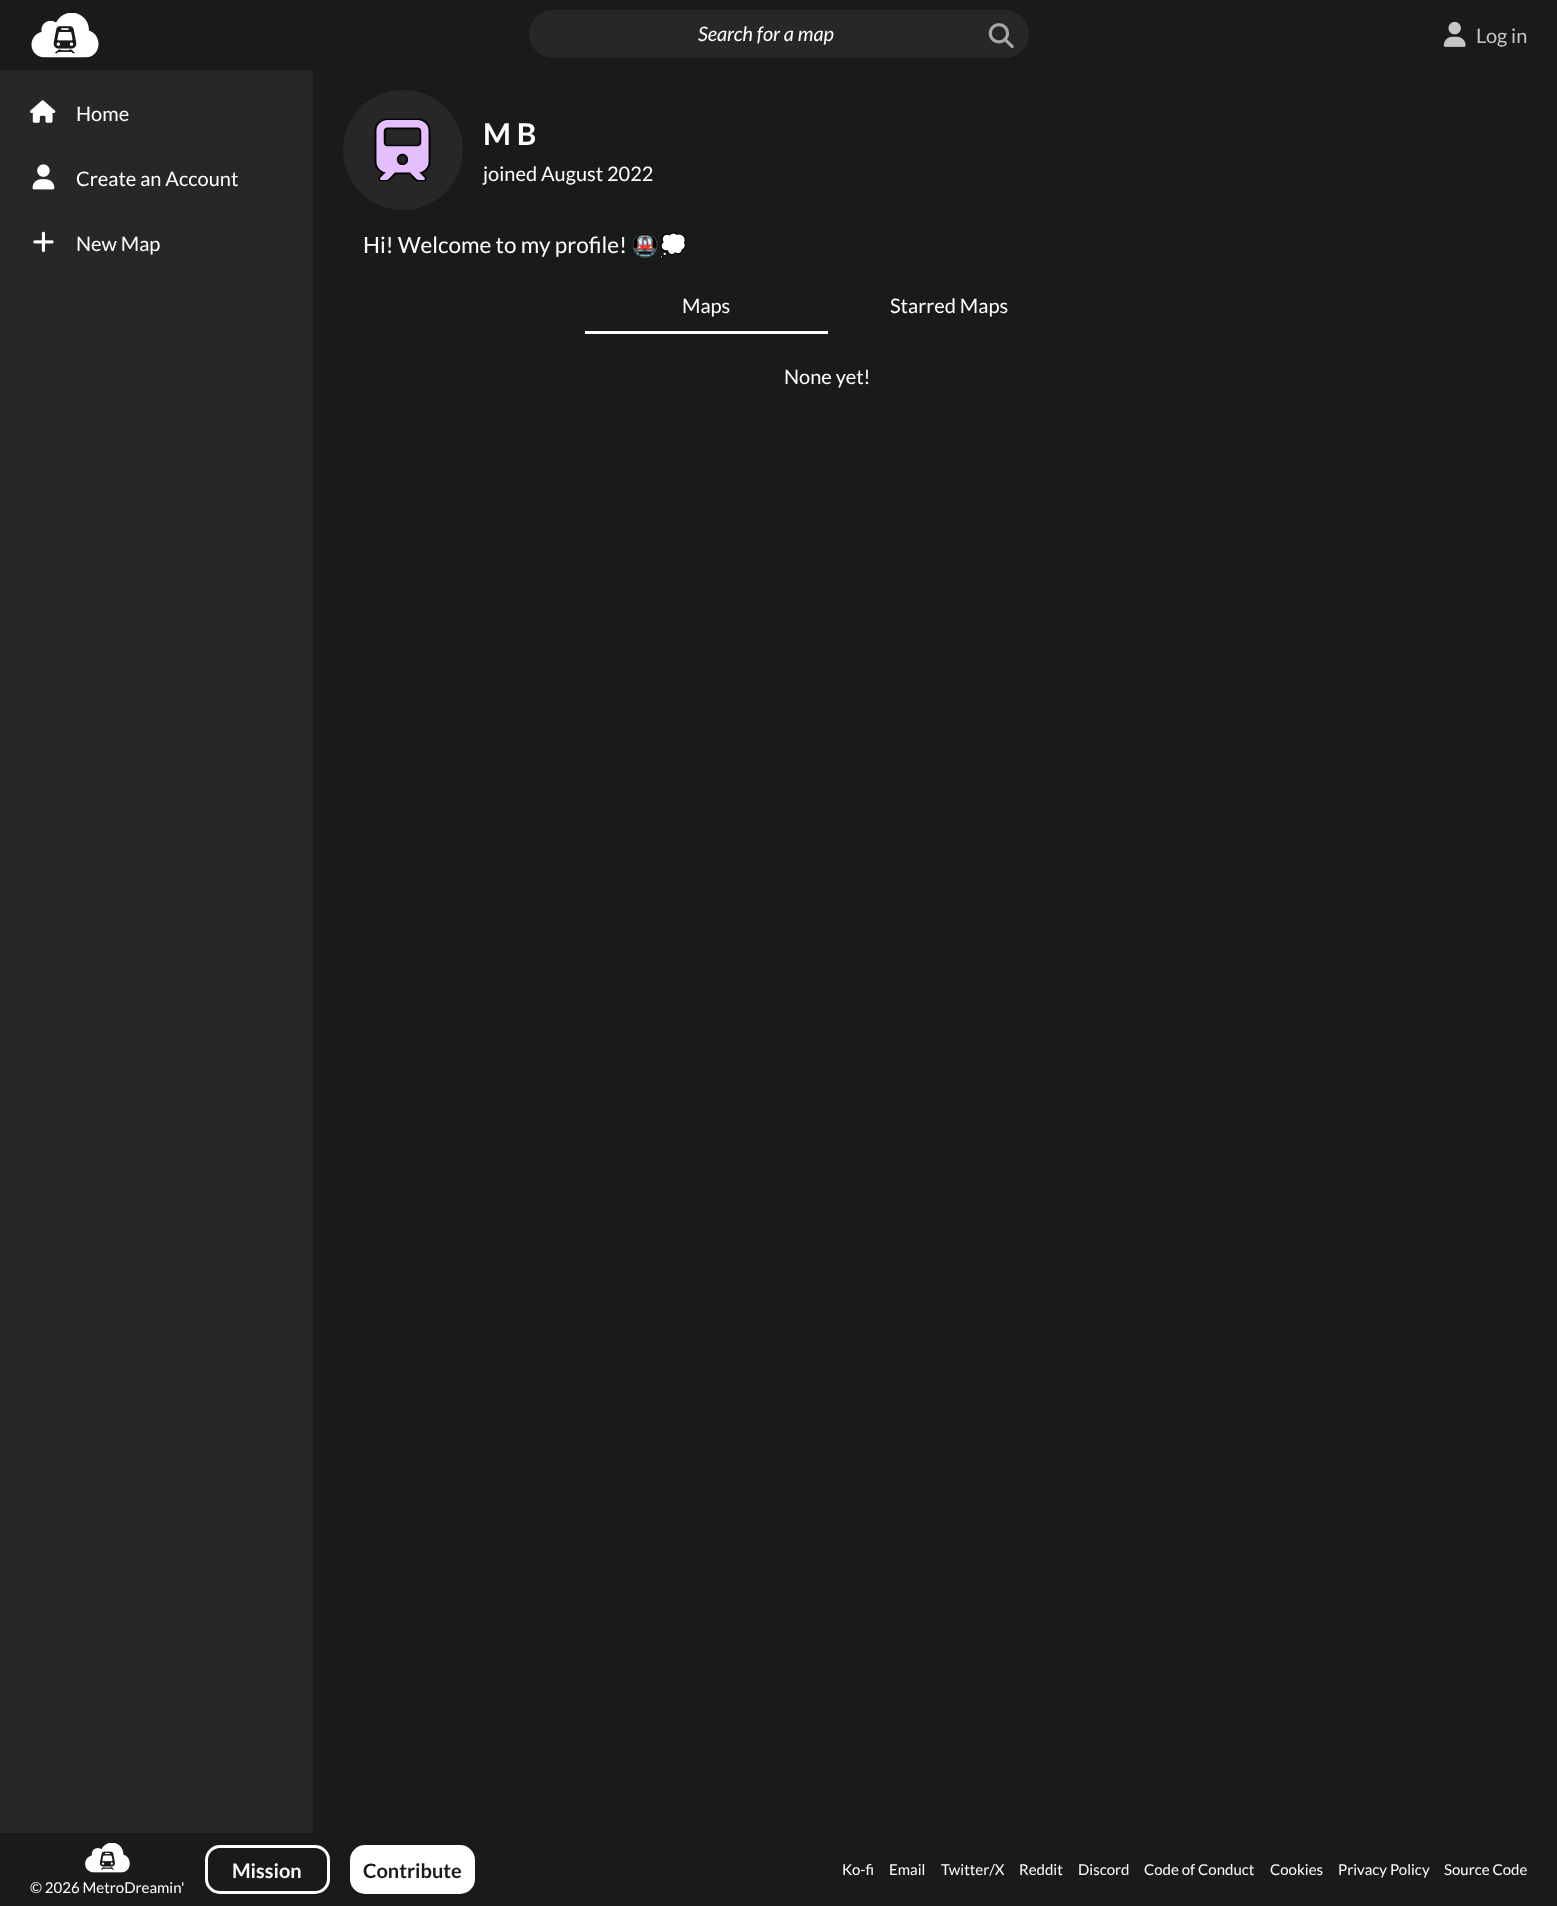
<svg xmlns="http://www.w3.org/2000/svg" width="1557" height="1906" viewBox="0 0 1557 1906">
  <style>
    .t1 { font: italic 20px Lato; fill: #fff; }
    .t2 { font: 20px Lato; fill: #c6c6c6; }
    .t3 { font: 20px Lato; fill: #fff; }
    .t4 { font: bold 30px Lato; fill: #fff; }
    .t5 { font: 22.5px Lato; fill: #fff; }
    .t6 { font: 22.5px Noto Color Emoji; fill: #fff; }
    .t7 { font: bold 20px Lato; fill: #f7f7f5; }
    .t8 { font: bold 20px Lato; fill: #191a1a; }
    .t9 { font: 15px Lato; fill: #fff; }
  </style>
  <rect width="100%" height="100%" fill="#191a1a"/>
  <image x="31" y="13" width="68" height="45" href="images/1.png"/>
  <rect x="529" y="10" width="500" height="48" rx="24" fill="#272727"/>
  <text x="698" y="41" class="t1">Search for a map</text>
  <image x="988" y="23" width="26" height="26" href="images/2.png"/>
  <image x="1443" y="21" width="23" height="26" href="images/3.png"/>
  <text x="1476" y="43" class="t2">Log in</text>
  <rect x="0" y="70" width="313" height="1763" fill="#272727"/>
  <image x="30" y="100" width="26" height="23" href="images/4.png"/>
  <text x="76" y="121" class="t3">Home</text>
  <image x="32" y="164" width="23" height="26" href="images/5.png"/>
  <text x="76" y="186" class="t3">Create an Account</text>
  <image x="33" y="231" width="21" height="21" href="images/6.png"/>
  <text x="76" y="251" class="t3">New Map</text>
  <circle cx="403" cy="150" r="60" fill="#272727"/>
  <image x="374" y="118" width="57" height="64" href="images/7.png"/>
  <text x="483" y="145" class="t4">M B</text>
  <text x="483" y="181" class="t3">joined August 2022</text>
  <text x="363" y="253" class="t5">Hi! Welcome to my profile!</text>
  <text x="631" y="253" class="t6">🚇💭</text>
  <rect x="585" y="331" width="243" height="3" fill="#fff"/>
  <text x="682" y="313" class="t3">Maps</text>
  <text x="890" y="313" class="t3">Starred Maps</text>
  <text x="784" y="384" class="t3">None yet!</text>
  <rect x="206.5" y="1846.5" width="122" height="46" rx="13.5" fill="none" stroke="#fff" stroke-width="3"/>
  <text x="232" y="1878" class="t7">Mission</text>
  <rect x="351.5" y="1846.5" width="122" height="46" rx="13.5" fill="#fff" stroke="#fff" stroke-width="3"/>
  <text x="363" y="1878" class="t8">Contribute</text>
  <image x="85" y="1843" width="45" height="30" href="images/8.png"/>
  <text x="30" y="1893" class="t9">© 2026 MetroDreamin'</text>
  <text x="842" y="1875" class="t9">Ko-fi</text>
  <text x="889" y="1875" class="t9">Email</text>
  <text x="941" y="1875" class="t9">Twitter/X</text>
  <text x="1019" y="1875" class="t9">Reddit</text>
  <text x="1078" y="1875" class="t9">Discord</text>
  <text x="1144" y="1875" class="t9">Code of Conduct</text>
  <text x="1270" y="1875" class="t9">Cookies</text>
  <text x="1338" y="1875" class="t9">Privacy Policy</text>
  <text x="1444" y="1875" class="t9">Source Code</text>
</svg>
